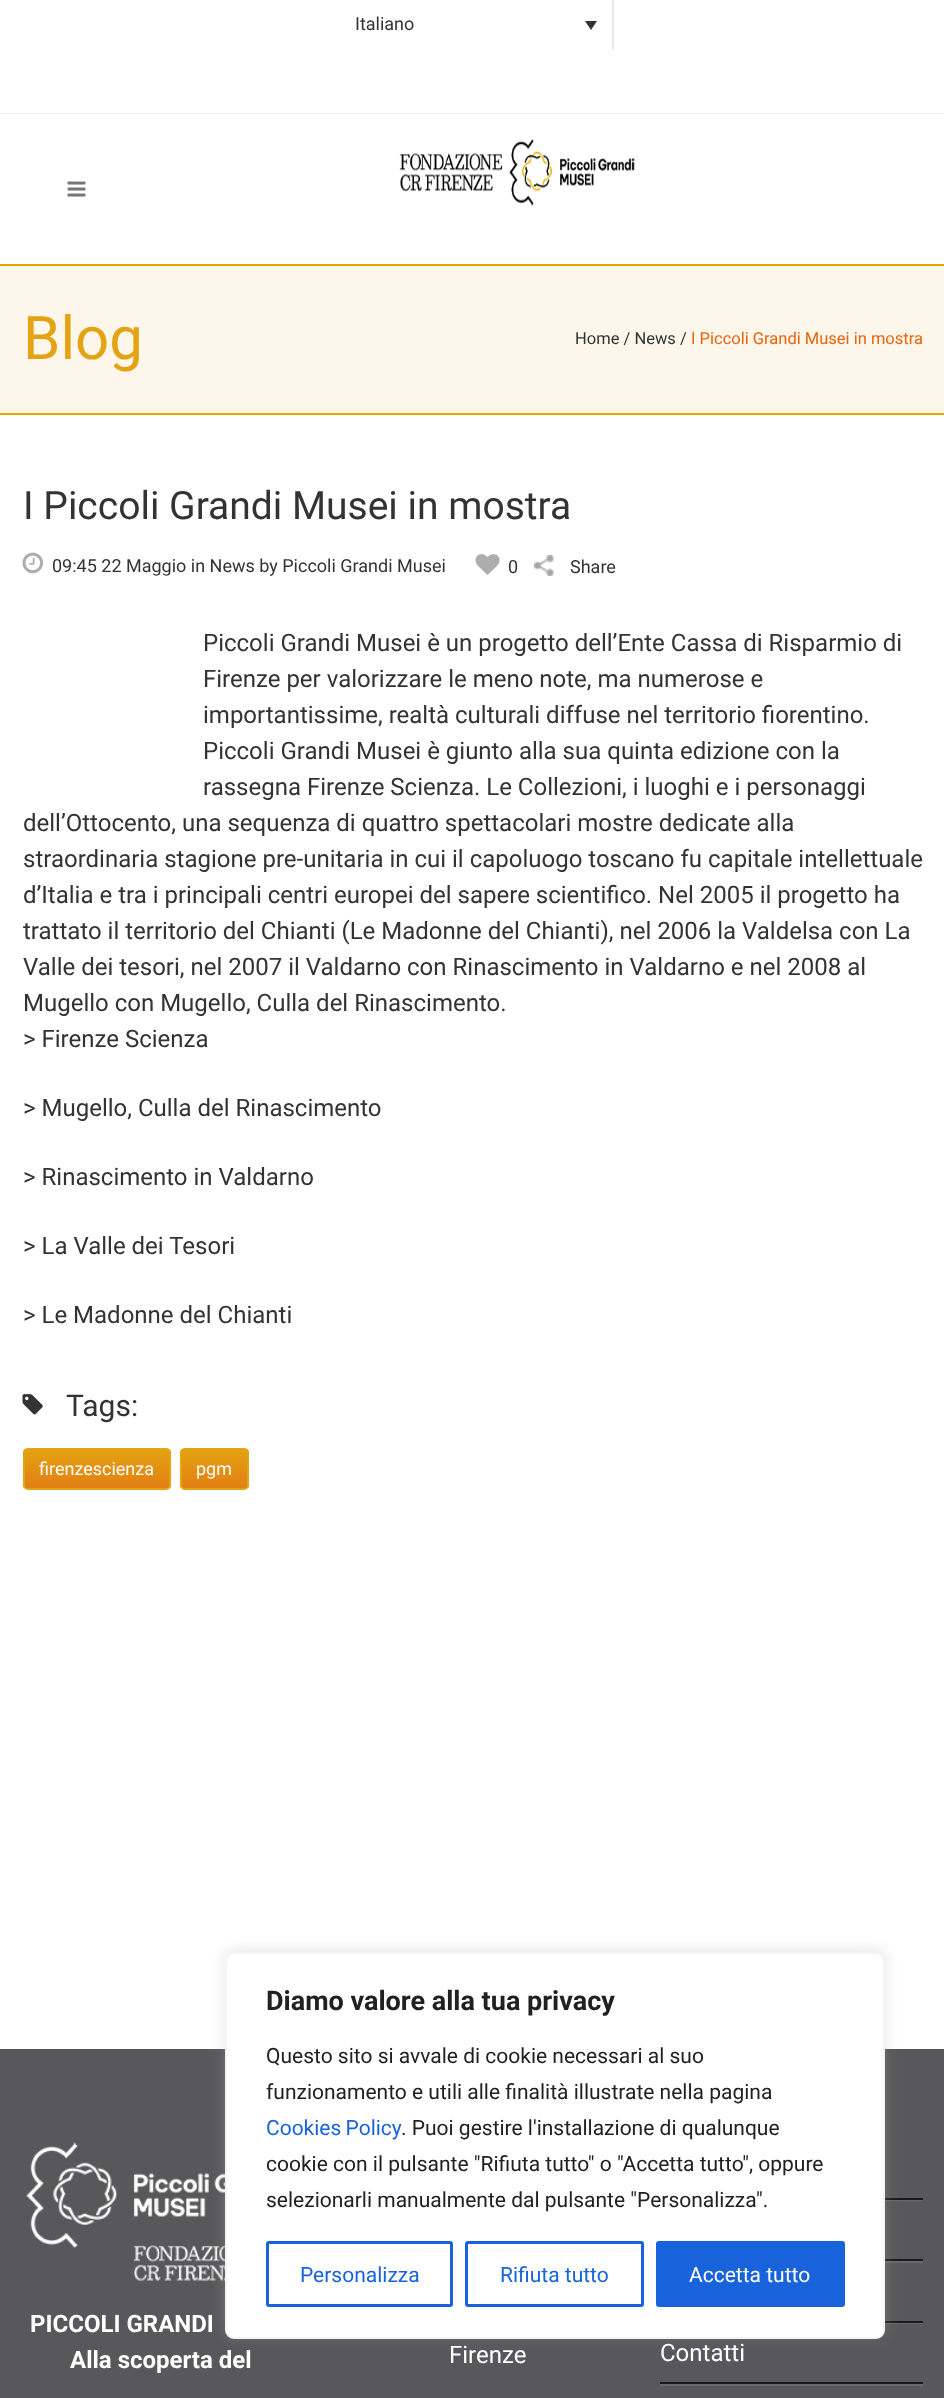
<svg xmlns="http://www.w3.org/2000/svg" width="944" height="2398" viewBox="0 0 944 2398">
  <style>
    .t1 { font: 18px Roboto; fill: #333; }
    .t2 { font: 60px Roboto; fill: #e3a313; }
    .t3 { font: 16.5px Roboto; fill: #333; }
    .t4 { font: 16.5px Roboto; fill: #e8640c; }
    .t5 { font: 39px Roboto; fill: #333; }
    .t6 { font: 24px Roboto; fill: #333; }
    .t7 { font: 30px Roboto; fill: #333; }
    .t8 { font: 18px Roboto; fill: #fff; }
    .t9 { font: bold 24px Roboto; fill: #fff; }
    .t10 { font: 24px Roboto; fill: #fff; }
    .t11 { font: bold 27px Roboto; fill: #212121; }
    .t12 { font: 21px Roboto; fill: #212121; }
    .t13 { font: 21px Roboto; fill: #1863dc; }
    .t14 { font: 21px Roboto; fill: #fff; }
  </style>
  <defs>
    <clipPath id="clip1"><rect x="23" y="1448" width="148" height="42" rx="5"/></clipPath>
    <linearGradient id="g1" gradientUnits="userSpaceOnUse" x1="97" y1="1488" x2="97" y2="1449"><stop offset="0" stop-color="#e37f13"/><stop offset="1" stop-color="#e3a313"/></linearGradient>
    <clipPath id="clip2"><rect x="180" y="1448" width="69" height="42" rx="5"/></clipPath>
    <linearGradient id="g2" gradientUnits="userSpaceOnUse" x1="215" y1="1488" x2="215" y2="1449"><stop offset="0" stop-color="#e37f13"/><stop offset="1" stop-color="#e3a313"/></linearGradient>
  </defs>
  <rect width="100%" height="100%" fill="#fff"/>
  <rect x="0" y="113" width="944" height="1" fill="#eaeaea"/>
  <rect x="612" y="0" width="2" height="50" fill="#eaeaea"/>
  <text x="355" y="30" class="t1">Italiano</text>
  <path d="M585 21H597L591 30Z" fill="#333"/>
  <rect x="0" y="264" width="944" height="2" fill="#e5a800"/>
  <image x="67" y="181" width="19" height="16" href="images/1.png"/>
  <image x="399" y="139" width="236" height="67" href="images/2.png"/>
  <rect x="0" y="266" width="944" height="147" fill="#fcf6eb"/>
  <rect x="0" y="413" width="944" height="2" fill="#e5a800"/>
  <text x="23" y="359" class="t2">Blog</text>
  <text x="575" y="344" class="t3">Home / News /</text>
  <text x="691" y="344" class="t4">I Piccoli Grandi Musei in mostra</text>
  <text x="23" y="519" class="t5">I Piccoli Grandi Musei in mostra</text>
  <image x="22" y="552" width="21" height="22" href="images/3.png"/>
  <text x="52" y="572" class="t1">09:45 22 Maggio in News by Piccoli Grandi Musei</text>
  <image x="475" y="554" width="25" height="21" href="images/4.png"/>
  <text x="508" y="573" class="t1">0</text>
  <image x="534" y="555" width="20" height="21" href="images/5.png"/>
  <text x="570" y="573" class="t1">Share</text>
  <text x="203" y="651" class="t6">Piccoli Grandi Musei è un progetto dell’Ente Cassa di Risparmio di</text>
  <text x="203" y="687" class="t6">Firenze per valorizzare le meno note, ma numerose e</text>
  <text x="203" y="723" class="t6">importantissime, realtà culturali diffuse nel territorio fiorentino.</text>
  <text x="203" y="759" class="t6">Piccoli Grandi Musei è giunto alla sua quinta edizione con la</text>
  <text x="203" y="795" class="t6">rassegna Firenze Scienza. Le Collezioni, i luoghi e i personaggi</text>
  <text x="23" y="831" class="t6">dell’Ottocento, una sequenza di quattro spettacolari mostre dedicate alla</text>
  <text x="23" y="867" class="t6">straordinaria stagione pre-unitaria in cui il capoluogo toscano fu capitale intellettuale</text>
  <text x="23" y="903" class="t6">d’Italia e tra i principali centri europei del sapere scientifico. Nel 2005 il progetto ha</text>
  <text x="23" y="939" class="t6">trattato il territorio del Chianti (Le Madonne del Chianti), nel 2006 la Valdelsa con La</text>
  <text x="23" y="975" class="t6">Valle dei tesori, nel 2007 il Valdarno con Rinascimento in Valdarno e nel 2008 al</text>
  <text x="23" y="1011" class="t6">Mugello con Mugello, Culla del Rinascimento.</text>
  <text x="23" y="1047" class="t6">&gt; Firenze Scienza</text>
  <text x="23" y="1116" class="t6">&gt; Mugello, Culla del Rinascimento</text>
  <text x="23" y="1185" class="t6">&gt; Rinascimento in Valdarno</text>
  <text x="23" y="1254" class="t6">&gt; La Valle dei Tesori</text>
  <text x="23" y="1323" class="t6">&gt; Le Madonne del Chianti</text>
  <image x="22" y="1394" width="21" height="21" href="images/6.png"/>
  <text x="66" y="1416" class="t7">Tags:</text>
  <g clip-path="url(#clip1)">
    <rect x="23" y="1449" width="148" height="39" fill="url(#g1)"/>
  </g>
  <rect x="24" y="1449" width="146" height="40" rx="4" fill="none" stroke="#e3a313" stroke-width="2"/>
  <text x="39" y="1475" class="t8">firenzescienza</text>
  <g clip-path="url(#clip2)">
    <rect x="180" y="1449" width="69" height="39" fill="url(#g2)"/>
  </g>
  <rect x="181" y="1449" width="67" height="40" rx="4" fill="none" stroke="#e3a313" stroke-width="2"/>
  <text x="196" y="1475" class="t8">pgm</text>
  <rect x="0" y="2049" width="944" height="349" fill="#58585a"/>
  <image x="26" y="2142" width="199" height="139" href="images/7.png"/>
  <text x="30" y="2332" class="t9">PICCOLI GRANDI</text>
  <text x="70" y="2368" class="t9">Alla scoperta del</text>
  <text x="449" y="2363" class="t10">Firenze</text>
  <rect x="885" y="2200" width="38" height="1" fill="#ffffff1a"/>
  <rect x="885" y="2198" width="38" height="2" fill="#1a1a1a"/>
  <rect x="885" y="2261" width="38" height="2" fill="#69696b"/>
  <rect x="885" y="2259" width="38" height="2" fill="#1a1a1a"/>
  <rect x="885" y="2323" width="38" height="1" fill="#69696b"/>
  <rect x="885" y="2321" width="38" height="2" fill="#1a1a1a"/>
  <rect x="660" y="2384" width="263" height="2" fill="#69696b"/>
  <text x="660" y="2361" class="t10">Contatti</text>
  <rect x="660" y="2382" width="263" height="2" fill="#1a1a1a"/>
  <rect x="225" y="1950" width="660" height="387" rx="9" fill="#acabab4d" filter="blur(7.5px)"/>
  <rect x="226" y="1953" width="658" height="385" rx="8" fill="#fff" stroke="#f4f4f4" stroke-width="2"/>
  <text x="266" y="2010" class="t11">Diamo valore alla tua privacy</text>
  <text x="266" y="2063" class="t12">Questo sito si avvale di cookie necessari al suo</text>
  <text x="266" y="2099" class="t12">funzionamento e utili alle finalità illustrate nella pagina</text>
  <text x="266" y="2135" word-spacing="-1" class="t13">Cookies Policy</text>
  <text x="401" y="2135" class="t12">. Puoi gestire l'installazione di qualunque</text>
  <text x="266" y="2171" class="t12">cookie con il pulsante "Rifiuta tutto" o "Accetta tutto", oppure</text>
  <text x="266" y="2207" class="t12">selezionarli manualmente dal pulsante "Personalizza".</text>
  <rect x="267.5" y="2242.5" width="184" height="63" rx="1.5" fill="none" stroke="#1863dc" stroke-width="3"/>
  <text x="300" y="2282" class="t13">Personalizza</text>
  <rect x="466.5" y="2242.5" width="176" height="63" rx="1.5" fill="none" stroke="#1863dc" stroke-width="3"/>
  <text x="500" y="2282" class="t13">Rifiuta tutto</text>
  <rect x="657.5" y="2242.5" width="186" height="63" rx="1.5" fill="#1863dc" stroke="#1863dc" stroke-width="3"/>
  <text x="689" y="2282" class="t14">Accetta tutto</text>
</svg>
